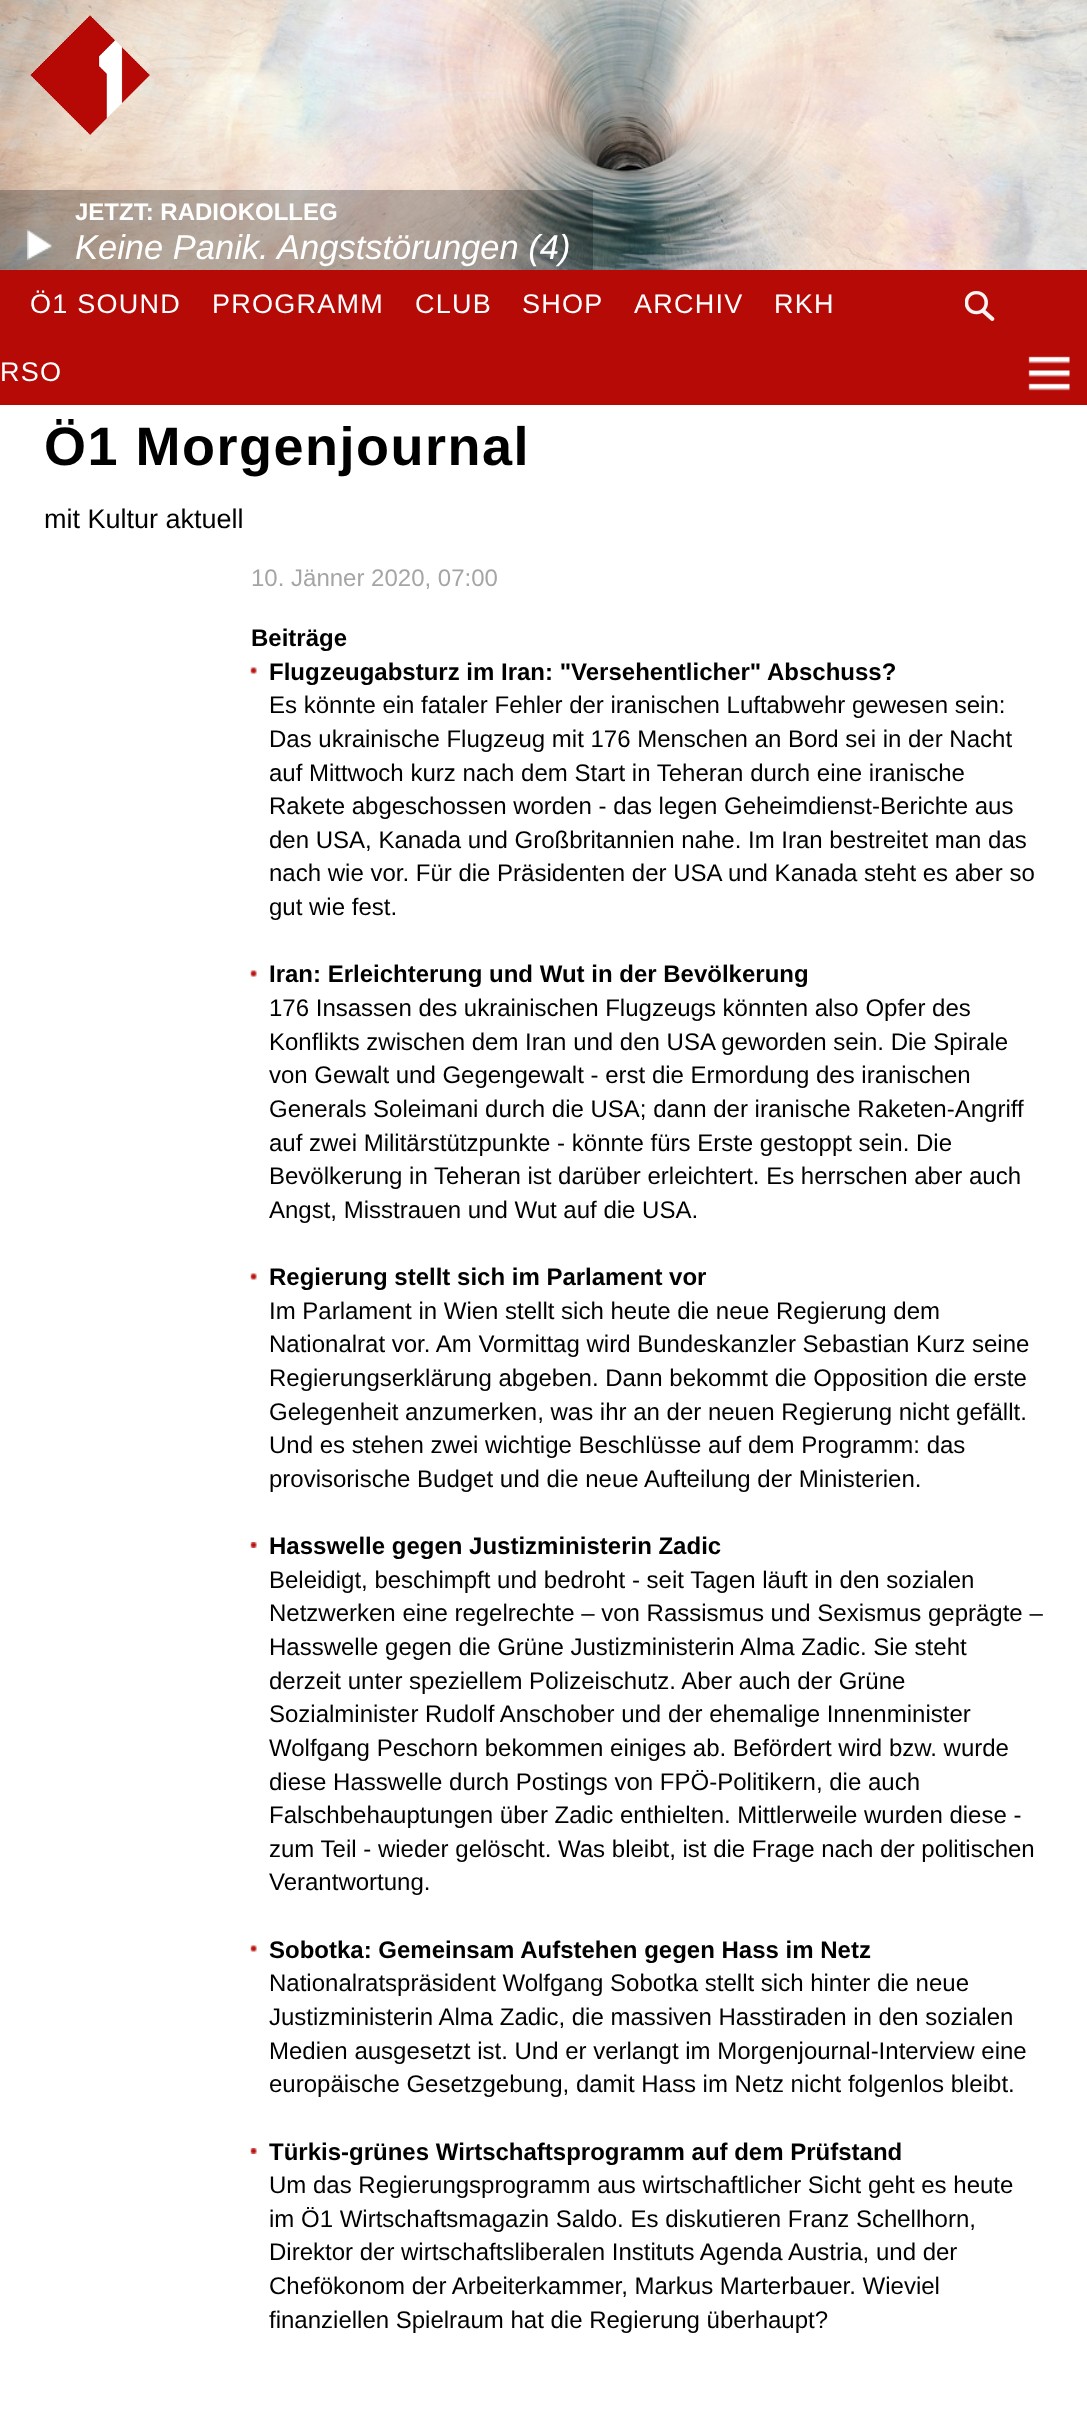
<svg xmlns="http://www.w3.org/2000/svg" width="1087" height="2417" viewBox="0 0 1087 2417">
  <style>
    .t1 { font: bold 24px Liberation Sans; fill: #fff; }
    .t2 { font: italic 34.5px Liberation Sans; fill: #fff; }
    .t3 { font: 27px Liberation Sans; letter-spacing: 1.25px; fill: #fff; }
    .t4 { font: bold 54px Liberation Sans; letter-spacing: 1.5px; fill: #000; }
    .t5 { font: 27px Liberation Sans; fill: #000; }
    .t6 { font: 24px Liberation Sans; fill: #a5a5a5; }
    .t7 { font: bold 24px Liberation Sans; fill: #000; }
    .t8 { font: 24px Liberation Sans; fill: #000; }
  </style>
  <rect width="100%" height="100%" fill="#fff"/>
  <image x="0" y="0" width="1087" height="270" href="images/2.png"/>
  <image x="30" y="15" width="120" height="120" href="images/1.png"/>
  <rect x="0" y="190" width="593" height="80" fill="#00000040"/>
  <text x="75" y="220" class="t1">JETZT: RADIOKOLLEG</text>
  <image x="27" y="229" width="26" height="31" href="images/3.png"/>
  <text x="75" y="259" class="t2">Keine Panik. Angststörungen (4)</text>
  <rect x="0" y="270" width="1087" height="135" fill="#b60a06"/>
  <text x="30" y="313" class="t3">Ö1 SOUND</text>
  <text x="212" y="313" class="t3">PROGRAMM</text>
  <text x="415" y="313" class="t3">CLUB</text>
  <text x="522" y="313" class="t3">SHOP</text>
  <text x="634" y="313" class="t3">ARCHIV</text>
  <text x="774" y="313" class="t3">RKH</text>
  <text x="0" y="381" class="t3">RSO</text>
  <image x="965" y="291" width="30" height="30" href="images/4.png"/>
  <image x="1028" y="356" width="42" height="35" href="images/5.png"/>
  <text x="44" y="465" class="t4">Ö1 Morgenjournal</text>
  <text x="44" y="528" class="t5">mit Kultur aktuell</text>
  <text x="251" y="586" class="t6">10. Jänner 2020, 07:00</text>
  <text x="251" y="646" class="t7">Beiträge</text>
  <image x="250" y="667" width="7" height="7" href="images/6.png"/>
  <text x="269" y="680" class="t7">Flugzeugabsturz im Iran: "Versehentlicher" Abschuss?</text>
  <text x="269" y="713" class="t8">Es könnte ein fataler Fehler der iranischen Luftabwehr gewesen sein:</text>
  <text x="269" y="747" class="t8">Das ukrainische Flugzeug mit 176 Menschen an Bord sei in der Nacht</text>
  <text x="269" y="781" class="t8">auf Mittwoch kurz nach dem Start in Teheran durch eine iranische</text>
  <text x="269" y="814" class="t8">Rakete abgeschossen worden - das legen Geheimdienst-Berichte aus</text>
  <text x="269" y="848" class="t8">den USA, Kanada und Großbritannien nahe. Im Iran bestreitet man das</text>
  <text x="269" y="881" class="t8">nach wie vor. Für die Präsidenten der USA und Kanada steht es aber so</text>
  <text x="269" y="915" class="t8">gut wie fest.</text>
  <image x="250" y="970" width="7" height="7" href="images/6.png"/>
  <text x="269" y="982" class="t7">Iran: Erleichterung und Wut in der Bevölkerung</text>
  <text x="269" y="1016" class="t8">176 Insassen des ukrainischen Flugzeugs könnten also Opfer des</text>
  <text x="269" y="1050" class="t8">Konflikts zwischen dem Iran und den USA geworden sein. Die Spirale</text>
  <text x="269" y="1083" class="t8">von Gewalt und Gegengewalt - erst die Ermordung des iranischen</text>
  <text x="269" y="1117" class="t8">Generals Soleimani durch die USA; dann der iranische Raketen-Angriff</text>
  <text x="269" y="1151" class="t8">auf zwei Militärstützpunkte - könnte fürs Erste gestoppt sein. Die</text>
  <text x="269" y="1184" class="t8">Bevölkerung in Teheran ist darüber erleichtert. Es herrschen aber auch</text>
  <text x="269" y="1218" class="t8">Angst, Misstrauen und Wut auf die USA.</text>
  <image x="250" y="1273" width="7" height="7" href="images/6.png"/>
  <text x="269" y="1285" class="t7">Regierung stellt sich im Parlament vor</text>
  <text x="269" y="1319" class="t8">Im Parlament in Wien stellt sich heute die neue Regierung dem</text>
  <text x="269" y="1352" class="t8">Nationalrat vor. Am Vormittag wird Bundeskanzler Sebastian Kurz seine</text>
  <text x="269" y="1386" class="t8">Regierungserklärung abgeben. Dann bekommt die Opposition die erste</text>
  <text x="269" y="1420" class="t8">Gelegenheit anzumerken, was ihr an der neuen Regierung nicht gefällt.</text>
  <text x="269" y="1453" class="t8">Und es stehen zwei wichtige Beschlüsse auf dem Programm: das</text>
  <text x="269" y="1487" class="t8">provisorische Budget und die neue Aufteilung der Ministerien.</text>
  <image x="250" y="1542" width="7" height="6" href="images/7.png"/>
  <text x="269" y="1554" class="t7">Hasswelle gegen Justizministerin Zadic</text>
  <text x="269" y="1588" class="t8">Beleidigt, beschimpft und bedroht - seit Tagen läuft in den sozialen</text>
  <text x="269" y="1621" class="t8">Netzwerken eine regelrechte – von Rassismus und Sexismus geprägte –</text>
  <text x="269" y="1655" class="t8">Hasswelle gegen die Grüne Justizministerin Alma Zadic. Sie steht</text>
  <text x="269" y="1689" class="t8">derzeit unter speziellem Polizeischutz. Aber auch der Grüne</text>
  <text x="269" y="1722" class="t8">Sozialminister Rudolf Anschober und der ehemalige Innenminister</text>
  <text x="269" y="1756" class="t8">Wolfgang Peschorn bekommen einiges ab. Befördert wird bzw. wurde</text>
  <text x="269" y="1790" class="t8">diese Hasswelle durch Postings von FPÖ-Politikern, die auch</text>
  <text x="269" y="1823" class="t8">Falschbehauptungen über Zadic enthielten. Mittlerweile wurden diese -</text>
  <text x="269" y="1857" class="t8">zum Teil - wieder gelöscht. Was bleibt, ist die Frage nach der politischen</text>
  <text x="269" y="1890" class="t8">Verantwortung.</text>
  <image x="250" y="1945" width="7" height="7" href="images/6.png"/>
  <text x="269" y="1958" class="t7">Sobotka: Gemeinsam Aufstehen gegen Hass im Netz</text>
  <text x="269" y="1991" class="t8">Nationalratspräsident Wolfgang Sobotka stellt sich hinter die neue</text>
  <text x="269" y="2025" class="t8">Justizministerin Alma Zadic, die massiven Hasstiraden in den sozialen</text>
  <text x="269" y="2059" class="t8">Medien ausgesetzt ist. Und er verlangt im Morgenjournal-Interview eine</text>
  <text x="269" y="2092" class="t8">europäische Gesetzgebung, damit Hass im Netz nicht folgenlos bleibt.</text>
  <image x="250" y="2148" width="7" height="6" href="images/7.png"/>
  <text x="269" y="2160" class="t7">Türkis-grünes Wirtschaftsprogramm auf dem Prüfstand</text>
  <text x="269" y="2193" class="t8">Um das Regierungsprogramm aus wirtschaftlicher Sicht geht es heute</text>
  <text x="269" y="2227" class="t8">im Ö1 Wirtschaftsmagazin Saldo. Es diskutieren Franz Schellhorn,</text>
  <text x="269" y="2260" class="t8">Direktor der wirtschaftsliberalen Instituts Agenda Austria, und der</text>
  <text x="269" y="2294" class="t8">Chefökonom der Arbeiterkammer, Markus Marterbauer. Wieviel</text>
  <text x="269" y="2328" class="t8">finanziellen Spielraum hat die Regierung überhaupt?</text>
</svg>
